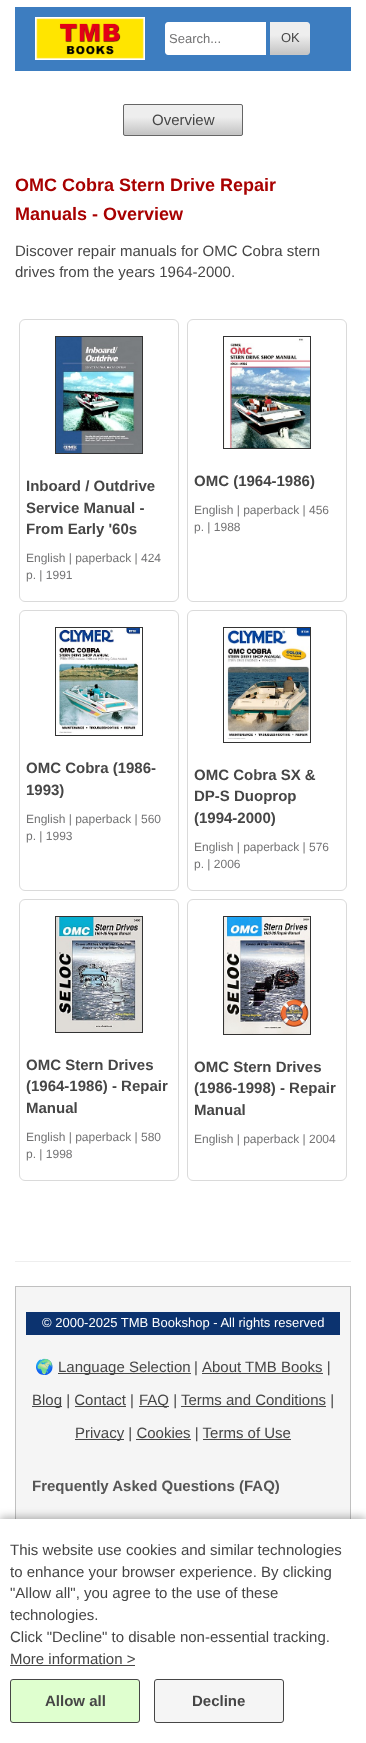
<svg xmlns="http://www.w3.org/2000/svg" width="366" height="1743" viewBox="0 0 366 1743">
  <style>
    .t1 { font: 13px Liberation Sans; fill: #737374; }
    .t2 { font: 13px Liberation Sans; fill: #464646; }
    .t3 { font: 15px Liberation Sans; fill: #464646; }
    .t4 { font: bold 18px Liberation Sans; fill: #a80000; }
    .t5 { font: bold 15px Liberation Sans; fill: #464646; }
    .t6 { font: 12px Liberation Sans; fill: #737374; }
    .t7 { font: 13px Liberation Sans; fill: #fff; }
    .t8 { font: 15px Noto Color Emoji; fill: #464646; }
    .t9 { font: bold 15px Liberation Sans; fill: #555; }
  </style>
  <defs>
    <linearGradient id="g1" gradientUnits="userSpaceOnUse" x1="290" y1="22" x2="290" y2="55"><stop offset="0.4" stop-color="#eee"/><stop offset="0.95" stop-color="#c6c6c6"/></linearGradient>
    <clipPath id="clip1"><rect x="123" y="104" width="120" height="32" rx="2"/></clipPath>
    <linearGradient id="g2" gradientUnits="userSpaceOnUse" x1="183" y1="105" x2="183" y2="135"><stop offset="0.4" stop-color="#eee"/><stop offset="0.95" stop-color="#c6c6c6"/></linearGradient>
  </defs>
  <rect width="100%" height="100%" fill="#fff"/>
  <rect x="15" y="7" width="336" height="64" fill="#3d7dc0"/>
  <image x="35" y="17" width="110" height="43" href="images/1.png"/>
  <path d="M168 22H266V55H168C166.5 55 165 53.5 165 52V25C165 23.5 166.5 22 168 22Z" fill="#fff"/>
  <text x="169" y="43" class="t1">Search...</text>
  <path d="M270 22H307C308.5 22 310 23.5 310 25V52C310 53.5 308.5 55 307 55H270Z" fill="url(#g1)"/>
  <text x="281" y="42" class="t2">OK</text>
  <g clip-path="url(#clip1)">
    <rect x="123" y="105" width="120" height="30" fill="url(#g2)"/>
  </g>
  <rect x="123.5" y="104.5" width="119" height="31" rx="1.5" fill="none" stroke="#666"/>
  <text x="152" y="125" class="t3">Overview</text>
  <text x="15" y="191" class="t4">OMC Cobra Stern Drive Repair</text>
  <text x="15" y="220" class="t4">Manuals - Overview</text>
  <text x="15" y="256" class="t3">Discover repair manuals for OMC Cobra stern</text>
  <text x="15" y="277" class="t3">drives from the years 1964-2000.</text>
  <rect x="19.5" y="319.5" width="159" height="282" rx="5.5" fill="none" stroke="#dadada"/>
  <rect x="55.5" y="336.5" width="87" height="117" fill="none" stroke="#333"/>
  <image x="56" y="337" width="86" height="116" href="images/2.png"/>
  <text x="26" y="491" class="t5">Inboard / Outdrive</text>
  <text x="26" y="513" class="t5">Service Manual -</text>
  <text x="26" y="534" class="t5">From Early '60s</text>
  <text x="26" y="562" class="t6">English | paperback | 424</text>
  <text x="26" y="579" class="t6">p. | 1991</text>
  <rect x="187.5" y="319.5" width="159" height="282" rx="5.5" fill="none" stroke="#dadada"/>
  <rect x="223.5" y="336.5" width="87" height="112" fill="none" stroke="#333"/>
  <image x="224" y="338" width="86" height="110" href="images/3.png"/>
  <text x="194" y="486" class="t5">OMC (1964-1986)</text>
  <text x="194" y="514" class="t6">English | paperback | 456</text>
  <text x="194" y="531" class="t6">p. | 1988</text>
  <rect x="19.5" y="610.5" width="159" height="280" rx="5.5" fill="none" stroke="#dadada"/>
  <rect x="55.5" y="627.5" width="87" height="108" fill="none" stroke="#333"/>
  <image x="56" y="628" width="85" height="105" href="images/4.png"/>
  <text x="26" y="773" class="t5">OMC Cobra (1986-</text>
  <text x="26" y="795" class="t5">1993)</text>
  <text x="26" y="823" class="t6">English | paperback | 560</text>
  <text x="26" y="840" class="t6">p. | 1993</text>
  <rect x="187.5" y="610.5" width="159" height="280" rx="5.5" fill="none" stroke="#dadada"/>
  <rect x="223.5" y="627.5" width="87" height="115" fill="none" stroke="#333"/>
  <image x="224" y="628" width="86" height="111" href="images/5.png"/>
  <text x="194" y="780" class="t5">OMC Cobra SX &amp;</text>
  <text x="194" y="801" class="t5">DP-S Duoprop</text>
  <text x="194" y="823" class="t5">(1994-2000)</text>
  <text x="194" y="851" class="t6">English | paperback | 576</text>
  <text x="194" y="868" class="t6">p. | 2006</text>
  <rect x="19.5" y="899.5" width="159" height="281" rx="5.5" fill="none" stroke="#dadada"/>
  <rect x="55.5" y="916.5" width="87" height="116" fill="none" stroke="#333"/>
  <image x="56" y="917" width="86" height="115" href="images/6.png"/>
  <text x="26" y="1070" class="t5">OMC Stern Drives</text>
  <text x="26" y="1091" class="t5">(1964-1986) - Repair</text>
  <text x="26" y="1113" class="t5">Manual</text>
  <text x="26" y="1141" class="t6">English | paperback | 580</text>
  <text x="26" y="1158" class="t6">p. | 1998</text>
  <rect x="187.5" y="899.5" width="159" height="281" rx="5.5" fill="none" stroke="#dadada"/>
  <rect x="223.5" y="916.5" width="87" height="118" fill="none" stroke="#333"/>
  <image x="224" y="917" width="86" height="117" href="images/7.png"/>
  <text x="194" y="1072" class="t5">OMC Stern Drives</text>
  <text x="194" y="1093" class="t5">(1986-1998) - Repair</text>
  <text x="194" y="1115" class="t5">Manual</text>
  <text x="194" y="1143" class="t6">English | paperback | 2004</text>
  <rect x="15" y="1261" width="336" height="1" fill="#eee"/>
  <rect x="16" y="1287" width="334" height="232" fill="#f5f5f5"/>
  <rect x="15.5" y="1286.5" width="335" height="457" fill="none" stroke="#c0c0c0"/>
  <rect x="26" y="1312" width="314" height="23" fill="#0c336f"/>
  <text x="42" y="1327" class="t7">© 2000-2025 TMB Bookshop - All rights reserved</text>
  <text x="35" y="1372" class="t8">🌍</text>
  <rect x="58" y="1373" width="133" height="1" fill="#464646"/>
  <text x="58" y="1372" class="t3">Language Selection</text>
  <text x="194" y="1372" class="t3">|</text>
  <rect x="202" y="1373" width="121" height="1" fill="#464646"/>
  <text x="202" y="1372" class="t3">About TMB Books |</text>
  <rect x="32" y="1406" width="30" height="1" fill="#464646"/>
  <text x="32" y="1405" class="t3">Blog | Contact |</text>
  <rect x="139" y="1406" width="30" height="1" fill="#464646"/>
  <text x="139" y="1405" class="t3">FAQ | Terms and Conditions |</text>
  <rect x="75" y="1406" width="51" height="1" fill="#464646"/>
  <rect x="181" y="1406" width="145" height="1" fill="#464646"/>
  <rect x="75" y="1439" width="49" height="1" fill="#464646"/>
  <text x="75" y="1438" class="t3">Privacy | Cookies | Terms of Use</text>
  <rect x="136" y="1439" width="55" height="1" fill="#464646"/>
  <rect x="203" y="1439" width="88" height="1" fill="#464646"/>
  <text x="32" y="1491" class="t9">Frequently Asked Questions (FAQ)</text>
  <rect x="0" y="1517" width="366" height="224" fill="#0000004d" filter="blur(4px)"/>
  <rect x="0" y="1519" width="366" height="224" fill="#fff"/>
  <text x="10" y="1555" class="t3">This website use cookies and similar technologies</text>
  <text x="10" y="1577" class="t3">to enhance your browser experience. By clicking</text>
  <text x="10" y="1598" class="t3">"Allow all", you agree to the use of these</text>
  <text x="10" y="1620" class="t3">technologies.</text>
  <text x="10" y="1642" class="t3">Click "Decline" to disable non-essential tracking.</text>
  <text x="10" y="1664" class="t3">More information &gt;</text>
  <rect x="10" y="1665" width="125" height="1" fill="#464646"/>
  <rect x="10.5" y="1679.5" width="129" height="43" rx="2.5" fill="#dfffcf" stroke="#464646"/>
  <text x="45" y="1706" class="t5">Allow all</text>
  <rect x="154.5" y="1679.5" width="129" height="43" rx="2.5" fill="#f5f5f5" stroke="#464646"/>
  <text x="192" y="1706" class="t5">Decline</text>
</svg>
